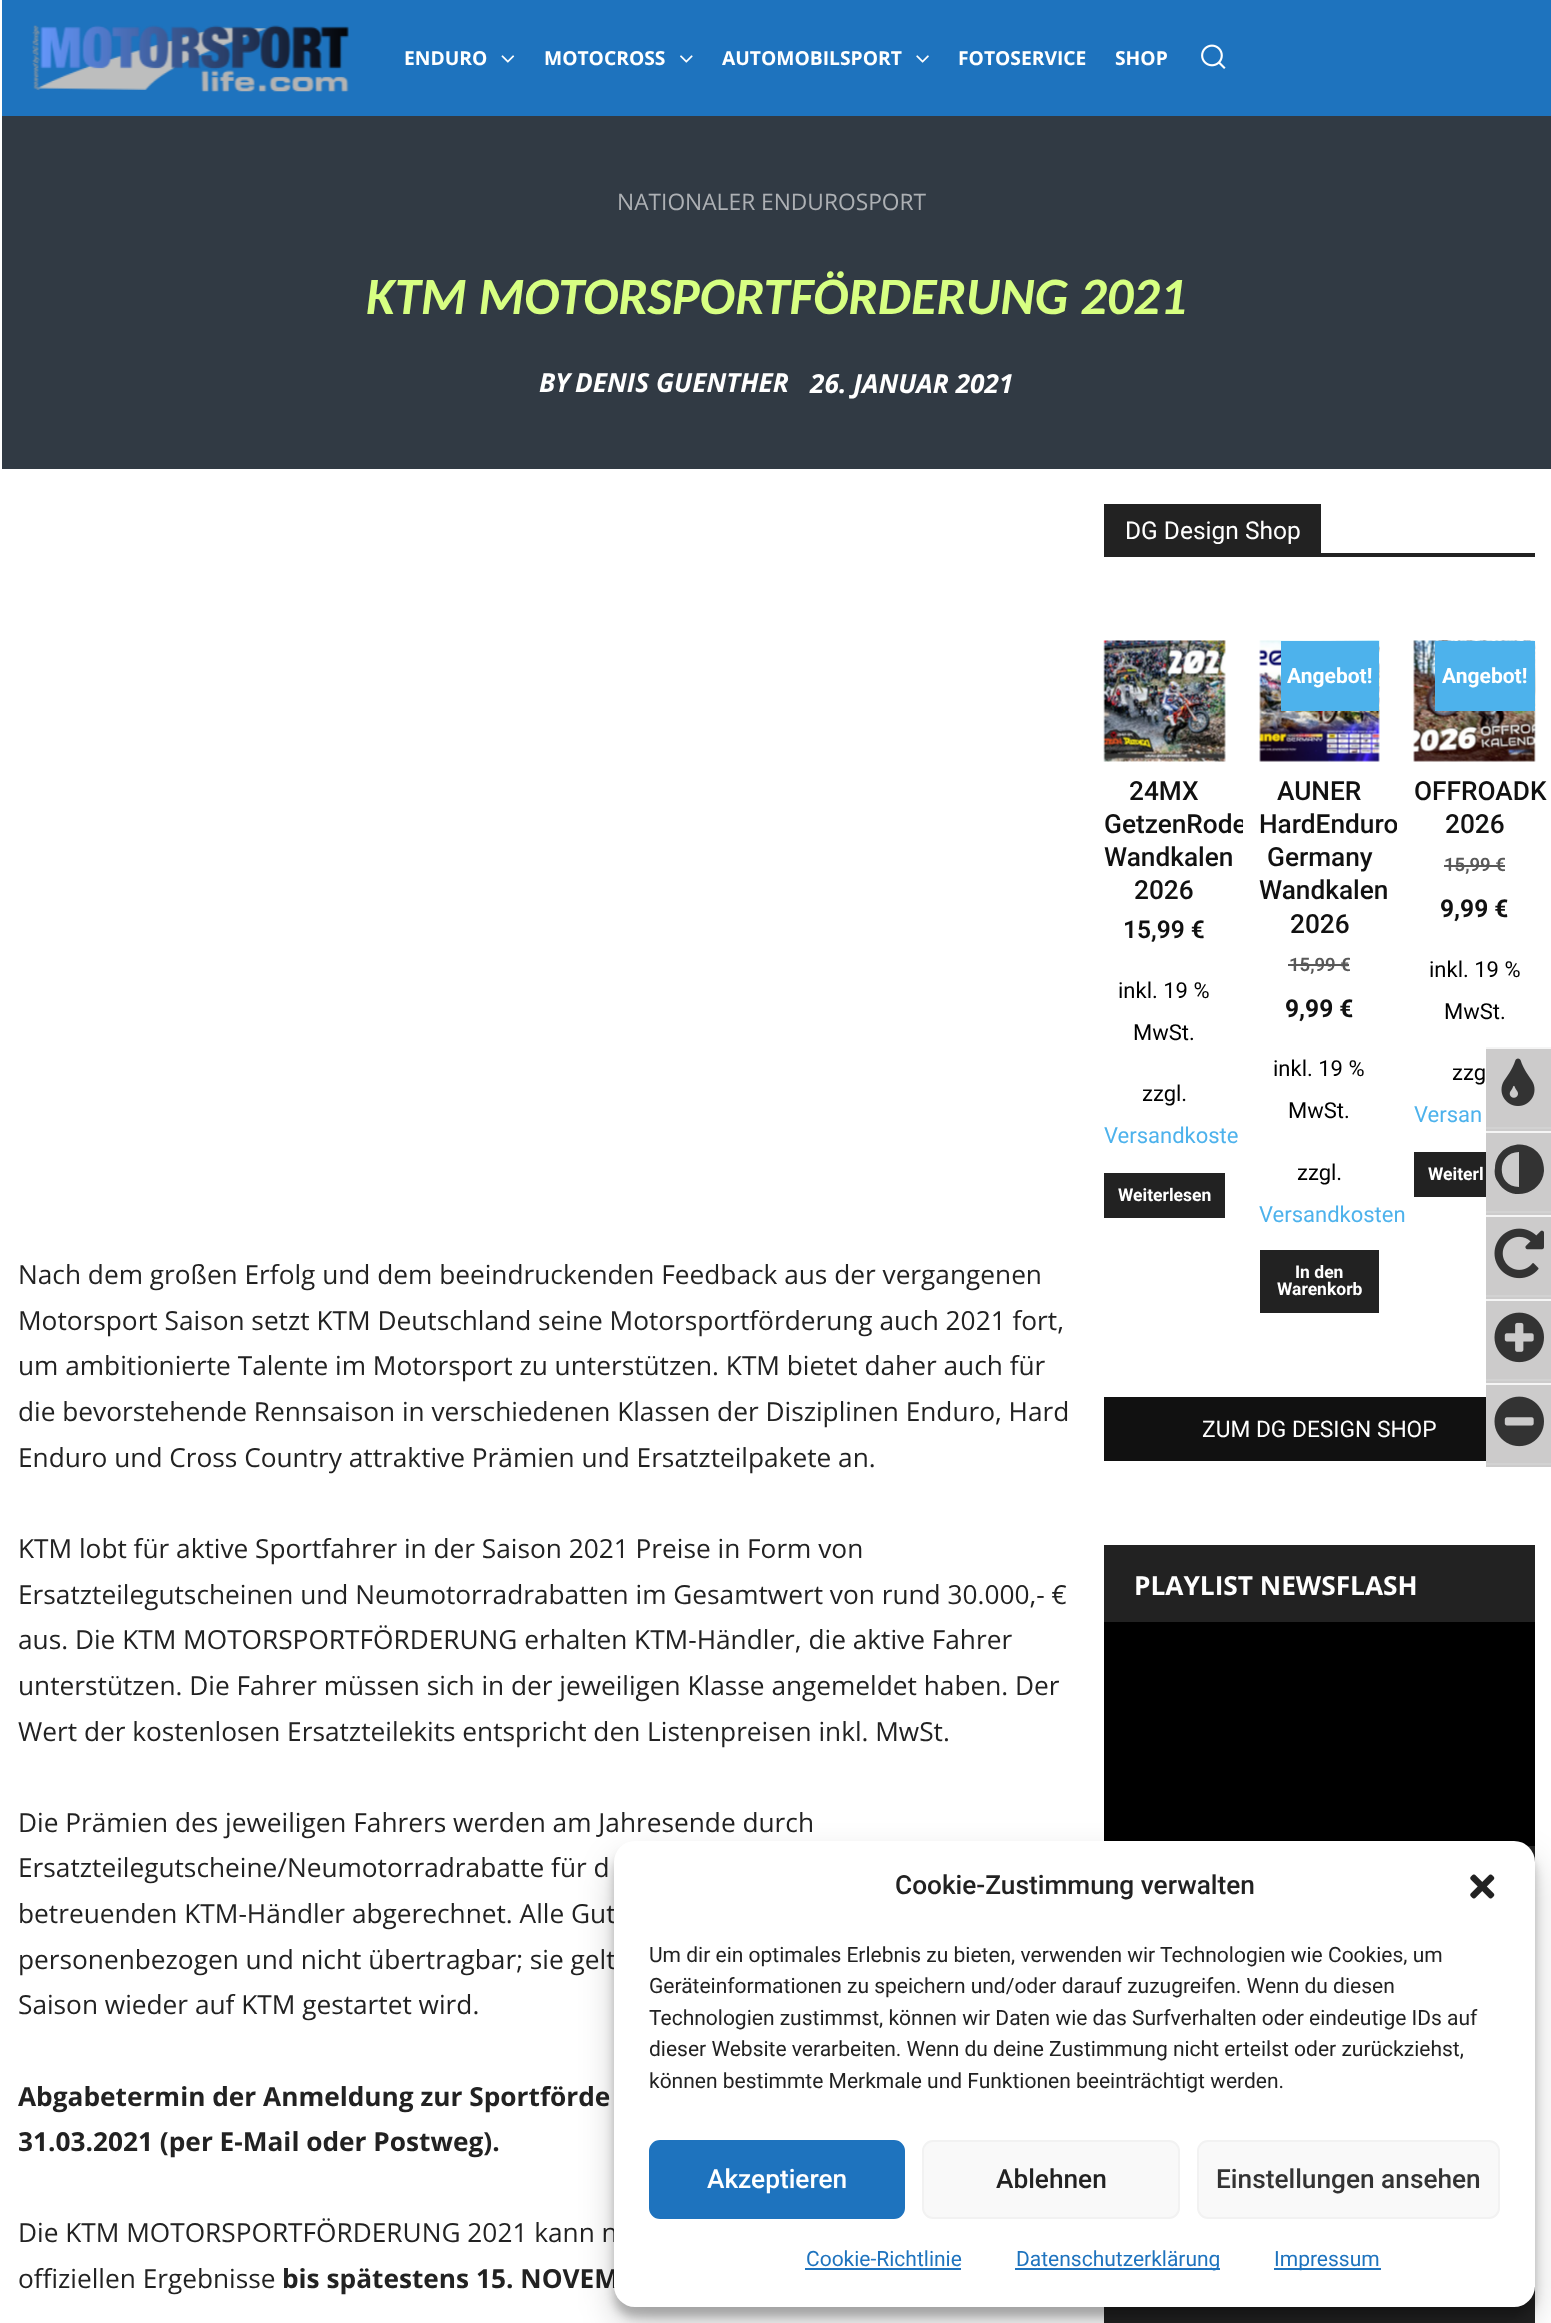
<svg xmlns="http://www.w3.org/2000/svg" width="1551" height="2323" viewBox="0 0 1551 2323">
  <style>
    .t1 { font: bold 19.25px Open Sans; fill: #fff; }
    .t2 { font: 22.75px Open Sans; fill: #adb0b4; }
    .t3 { font: italic bold 52.5px Carlito; fill: #d7ff82; }
    .t4 { font: italic bold 26.25px Open Sans; fill: #fff; }
    .t5 { font: 24.5px Roboto; fill: #fff; }
    .t6 { font: 500 26.25px Roboto; fill: #111; }
    .t7 { font: 600 24.5px Roboto; fill: #111; }
    .t8 { font: 22px Roboto; fill: #000; }
    .t9 { font: 22px Roboto; fill: #4db2ec; }
    .t10 { font: bold 17.5px Roboto; fill: #fff; }
    .t11 { font: bold 21px Roboto; fill: #fff; }
    .t12 { font: 600 18.5px Roboto; fill: #585858; }
    .t13 { font: bold 24.5px Roboto; fill: #111; }
    .t14 { font: 22.75px Roboto; fill: #fff; }
    .t15 { font: bold 26.25px Open Sans; fill: #fff; }
    .t16 { font: 26.25px Open Sans; fill: #222; }
    .t17 { font: bold 26.25px Open Sans; fill: #222; }
    .t18 { font: 500 26.25px Roboto; fill: #222; }
    .t19 { font: 21px Roboto; fill: #222; }
    .t20 { font: 500 26.25px Roboto; fill: #fff; }
    .t21 { font: 500 26.25px Roboto; fill: #333; }
    .t22 { font: 21px Roboto; fill: #1e73be; }
  </style>
  <rect width="100%" height="100%" fill="#fff"/>
  <rect x="2" y="0" width="1549" height="116" fill="#1e73be"/>
  <image x="32" y="25" width="317" height="67" href="images/1.png"/>
  <text x="404" y="65" class="t1">ENDURO</text>
  <image x="501" y="55" width="14" height="8" href="images/2.png"/>
  <text x="544" y="65" class="t1">MOTOCROSS</text>
  <image x="680" y="55" width="13" height="8" href="images/3.png"/>
  <text x="722" y="65" class="t1">AUTOMOBILSPORT</text>
  <image x="916" y="55" width="13" height="8" href="images/4.png"/>
  <text x="958" y="65" class="t1">FOTOSERVICE</text>
  <text x="1115" y="65" class="t1">SHOP</text>
  <image x="1201" y="44" width="25" height="25" href="images/5.png"/>
  <rect x="2" y="116" width="1549" height="353" fill="#313a44"/>
  <text x="617" y="210" class="t2">NATIONALER ENDUROSPORT</text>
  <text x="366" y="314" class="t3">KTM MOTORSPORTFÖRDERUNG 2021</text>
  <text x="539" y="392" class="t4">BY</text>
  <text x="575" y="392" class="t4">DENIS GUENTHER</text>
  <text x="810" y="393" class="t4">26. JANUAR 2021</text>
  <rect x="1104" y="553" width="431" height="4" fill="#222"/>
  <rect x="1104" y="504" width="217" height="49" fill="#222"/>
  <text x="1125" y="539" class="t5">DG Design Shop</text>
  <image x="1103" y="640" width="123" height="122" href="images/6.png"/>
  <text x="1129" y="800" class="t6">24MX</text>
  <text x="1104" y="833" class="t6">GetzenRode</text>
  <text x="1104" y="866" class="t6">Wandkalen</text>
  <text x="1134" y="899" class="t6">2026</text>
  <text x="1123" y="938" class="t7">15,99 €</text>
  <text x="1118" y="998" class="t8">inkl. 19 %</text>
  <text x="1133" y="1040" class="t8">MwSt.</text>
  <text x="1142" y="1101" class="t8">zzgl.</text>
  <text x="1104" y="1143" class="t9">Versandkoste</text>
  <rect x="1104" y="1173" width="121" height="45" fill="#222"/>
  <text x="1118" y="1201" class="t10">Weiterlesen</text>
  <rect x="1243" y="819" width="3" height="14" fill="#fff"/>
  <image x="1259" y="640" width="121" height="122" href="images/7.png"/>
  <rect x="1281" y="641" width="98" height="70" fill="#4db2ec"/>
  <text x="1287" y="683" class="t11">Angebot!</text>
  <text x="1277" y="800" class="t6">AUNER</text>
  <text x="1259" y="833" class="t6">HardEnduro</text>
  <text x="1267" y="866" class="t6">Germany</text>
  <text x="1259" y="899" class="t6">Wandkalen</text>
  <text x="1290" y="933" class="t6">2026</text>
  <text x="1289" y="971" class="t12">15,99 €</text>
  <rect x="1288" y="964" width="61" height="2" fill="#585858"/>
  <text x="1285" y="1017" class="t13">9,99 €</text>
  <text x="1273" y="1076" class="t8">inkl. 19 %</text>
  <text x="1288" y="1118" class="t8">MwSt.</text>
  <text x="1297" y="1180" class="t8">zzgl.</text>
  <text x="1259" y="1222" class="t9">Versandkosten</text>
  <rect x="1260" y="1250" width="119" height="63" fill="#222"/>
  <text x="1295" y="1278" class="t10">In den</text>
  <text x="1277" y="1295" class="t10">Warenkorb</text>
  <rect x="1397" y="823" width="1" height="7" fill="#fff"/>
  <image x="1413" y="640" width="123" height="122" href="images/8.png"/>
  <rect x="1435" y="641" width="100" height="70" fill="#4db2ec"/>
  <text x="1442" y="683" class="t11">Angebot!</text>
  <text x="1414" y="800" class="t6">OFFROADK</text>
  <text x="1445" y="833" class="t6">2026</text>
  <text x="1444" y="871" class="t12">15,99 €</text>
  <rect x="1444" y="865" width="61" height="2" fill="#585858"/>
  <text x="1440" y="917" class="t13">9,99 €</text>
  <text x="1429" y="977" class="t8">inkl. 19 %</text>
  <text x="1444" y="1019" class="t8">MwSt.</text>
  <text x="1452" y="1080" class="t8">zzg</text>
  <text x="1414" y="1122" class="t9">Versan</text>
  <rect x="1414" y="1152" width="72" height="45" fill="#222"/>
  <text x="1428" y="1180" class="t10">Weiterl</text>
  <rect x="1104" y="1397" width="382" height="64" fill="#111"/>
  <text x="1202" y="1437" class="t14">ZUM DG DESIGN SHOP</text>
  <rect x="1104" y="1545" width="431" height="77" fill="#222"/>
  <text x="1134" y="1595" class="t15">PLAYLIST NEWSFLASH</text>
  <rect x="1104" y="1622" width="431" height="224" fill="#000"/>
  <rect x="1104" y="1846" width="431" height="477" fill="#222"/>
  <text x="18" y="1284" class="t16">Nach dem großen Erfolg und dem beeindruckenden Feedback aus der vergangenen</text>
  <text x="18" y="1330" class="t16">Motorsport Saison setzt KTM Deutschland seine Motorsportförderung auch 2021 fort,</text>
  <text x="18" y="1375" class="t16">um ambitionierte Talente im Motorsport zu unterstützen. KTM bietet daher auch für</text>
  <text x="18" y="1421" class="t16">die bevorstehende Rennsaison in verschiedenen Klassen der Disziplinen Enduro, Hard</text>
  <text x="18" y="1467" class="t16">Enduro und Cross Country attraktive Prämien und Ersatzteilpakete an.</text>
  <text x="18" y="1558" class="t16">KTM lobt für aktive Sportfahrer in der Saison 2021 Preise in Form von</text>
  <text x="18" y="1604" class="t16">Ersatzteilegutscheinen und Neumotorradrabatten im Gesamtwert von rund 30.000,- €</text>
  <text x="18" y="1649" class="t16">aus. Die KTM MOTORSPORTFÖRDERUNG erhalten KTM-Händler, die aktive Fahrer</text>
  <text x="18" y="1695" class="t16">unterstützen. Die Fahrer müssen sich in der jeweiligen Klasse angemeldet haben. Der</text>
  <text x="18" y="1741" class="t16">Wert der kostenlosen Ersatzteilekits entspricht den Listenpreisen inkl. MwSt.</text>
  <text x="18" y="1832" class="t16">Die Prämien des jeweiligen Fahrers werden am Jahresende durch</text>
  <text x="18" y="1877" class="t16">Ersatzteilegutscheine/Neumotorradrabatte für d</text>
  <text x="18" y="1923" class="t16">betreuenden KTM-Händler abgerechnet. Alle Gut</text>
  <text x="18" y="1969" class="t16">personenbezogen und nicht übertragbar; sie gelt</text>
  <text x="18" y="2014" class="t16">Saison wieder auf KTM gestartet wird.</text>
  <text x="18" y="2106" class="t17">Abgabetermin der Anmeldung zur Sportförde</text>
  <text x="18" y="2151" class="t17">31.03.2021 (per E-Mail oder Postweg).</text>
  <text x="18" y="2242" class="t16">Die KTM MOTORSPORTFÖRDERUNG 2021 kann n</text>
  <text x="18" y="2288" class="t16">offiziellen Ergebnisse</text>
  <text x="282" y="2288" class="t17">bis spätestens 15. NOVEM</text>
  <rect x="1486" y="1049" width="65" height="418" fill="#cccbcb"/>
  <rect x="1486" y="1047" width="65" height="2" fill="#f5f5f5"/>
  <rect x="1486" y="1127" width="65" height="2" fill="#d2d2d2"/>
  <image x="1501" y="1058" width="34" height="48" href="images/9.png"/>
  <rect x="1486" y="1131" width="65" height="2" fill="#f5f5f5"/>
  <rect x="1486" y="1211" width="65" height="2" fill="#d2d2d2"/>
  <path d="M1519 1187V1152C1496 1152 1496 1187 1519 1187ZM1541 1157C1543 1161 1544 1166 1544 1171C1542 1195 1510 1203 1498 1182C1495 1178 1494 1173 1495 1168C1496 1143 1529 1136 1541 1157Z" fill="#333"/>
  <rect x="1486" y="1215" width="65" height="2" fill="#f5f5f5"/>
  <rect x="1486" y="1295" width="65" height="2" fill="#d2d2d2"/>
  <image x="1494" y="1228" width="50" height="51" href="images/10.png"/>
  <rect x="1486" y="1299" width="65" height="2" fill="#f5f5f5"/>
  <rect x="1486" y="1379" width="65" height="2" fill="#d2d2d2"/>
  <image x="1494" y="1312" width="50" height="51" href="images/11.png"/>
  <rect x="1486" y="1383" width="65" height="2" fill="#f5f5f5"/>
  <rect x="1486" y="1463" width="65" height="2" fill="#d2d2d2"/>
  <image x="1494" y="1396" width="50" height="51" href="images/12.png"/>
  <rect x="614" y="1852" width="921" height="465" rx="21" fill="#0000003b" filter="blur(5px)"/>
  <rect x="614" y="1859" width="921" height="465" rx="21" fill="#00000030" filter="blur(17.5px)"/>
  <rect x="614" y="1841" width="921" height="466" rx="21" fill="#fff"/>
  <text x="895" y="1894" class="t18">Cookie-Zustimmung verwalten</text>
  <image x="1470" y="1874" width="25" height="25" href="images/13.png"/>
  <text x="649" y="1962" class="t19">Um dir ein optimales Erlebnis zu bieten, verwenden wir Technologien wie Cookies, um</text>
  <text x="649" y="1993" class="t19">Geräteinformationen zu speichern und/oder darauf zuzugreifen. Wenn du diesen</text>
  <text x="649" y="2025" class="t19">Technologien zustimmst, können wir Daten wie das Surfverhalten oder eindeutige IDs auf</text>
  <text x="649" y="2056" class="t19">dieser Website verarbeiten. Wenn du deine Zustimmung nicht erteilst oder zurückziehst,</text>
  <text x="649" y="2088" class="t19">können bestimmte Merkmale und Funktionen beeinträchtigt werden.</text>
  <rect x="650" y="2141" width="254" height="77" rx="10" fill="#1e73be" stroke="#1e73be" stroke-width="2"/>
  <text x="707" y="2188" class="t20">Akzeptieren</text>
  <rect x="923" y="2141" width="256" height="77" rx="10" fill="#f9f9f9" stroke="#f2f2f2" stroke-width="2"/>
  <text x="996" y="2188" class="t18">Ablehnen</text>
  <rect x="1198" y="2141" width="301" height="77" rx="10" fill="#f9f9f9" stroke="#f2f2f2" stroke-width="2"/>
  <text x="1216" y="2188" class="t21">Einstellungen ansehen</text>
  <text x="806" y="2266" class="t22">Cookie-Richtlinie</text>
  <rect x="805" y="2268" width="156" height="2" fill="#1e73be"/>
  <rect x="1015" y="2268" width="205" height="2" fill="#1e73be"/>
  <text x="1016" y="2266" class="t22">Datenschutzerklärung</text>
  <rect x="1274" y="2268" width="107" height="2" fill="#1e73be"/>
  <text x="1274" y="2266" class="t22">Impressum</text>
</svg>
